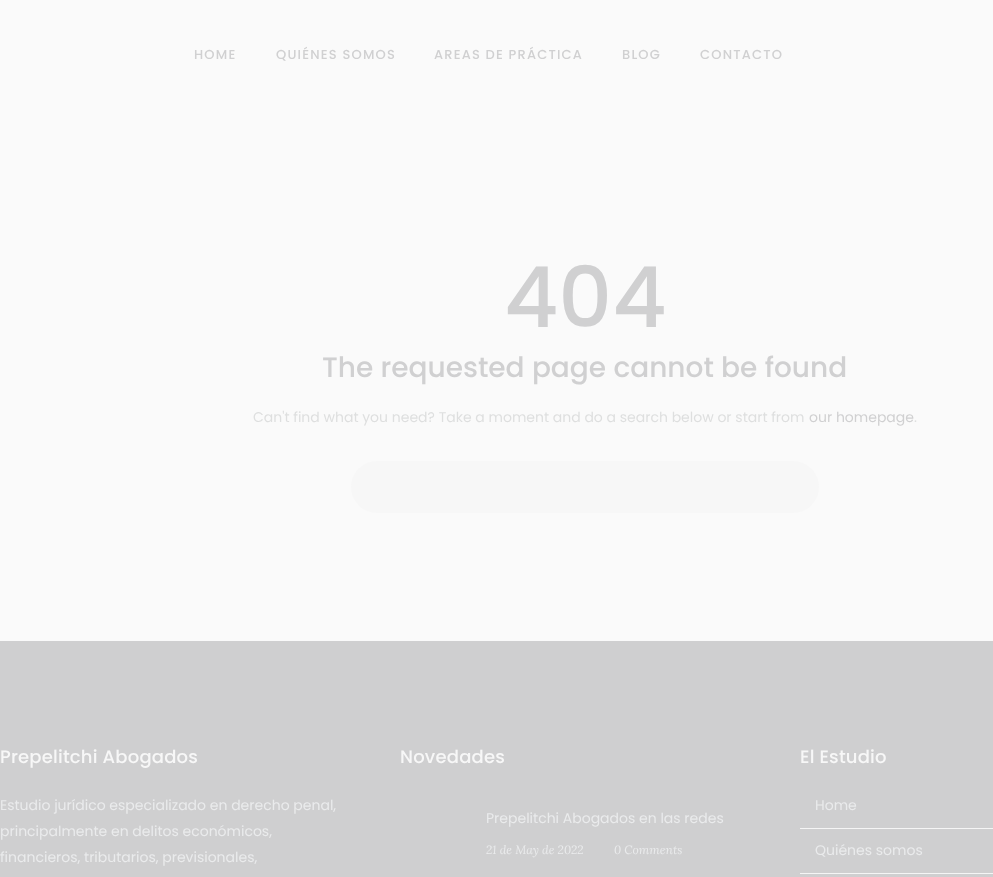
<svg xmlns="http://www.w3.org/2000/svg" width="993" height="877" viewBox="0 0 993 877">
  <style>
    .t1 { font: 500 13px Poppins; letter-spacing: 1.2px; fill: #d0d0d1; }
    .t2 { font: 500 84px Poppins; fill: #d0d0d1; }
    .t3 { font: 500 28px Poppins; fill: #d0d0d1; }
    .t4 { font: 14px Poppins; fill: #dedfdf; }
    .t5 { font: 14px Poppins; fill: #d0d0d1; }
    .t6 { font: 500 18px Poppins; letter-spacing: 0.2px; fill: #f7f7f7; }
    .t7 { font: 14px Poppins; fill: #eaebec; }
    .t8 { font: italic 12px Lora; fill: #eaebec; }
  </style>
  <rect width="100%" height="100%" fill="#fafafa"/>
  <text x="194" y="59" class="t1">HOME</text>
  <text x="276" y="59" class="t1">QUIÉNES SOMOS</text>
  <text x="434" y="59" class="t1">AREAS DE PRÁCTICA</text>
  <text x="622" y="59" class="t1">BLOG</text>
  <text x="700" y="59" class="t1">CONTACTO</text>
  <text x="504" y="327" class="t2">404</text>
  <text x="322" y="377" class="t3">The requested page cannot be found</text>
  <text x="253" y="422" class="t4">Can't find what you need? Take a moment and do a search below or start from</text>
  <text x="809" y="422" class="t5">our homepage</text>
  <text x="914" y="422" class="t4">.</text>
  <rect x="351" y="461" width="468" height="52" rx="26" fill="#f7f7f7"/>
  <rect x="0" y="641" width="993" height="236" fill="#cfcfd0"/>
  <text x="0" y="763" class="t6">Prepelitchi Abogados</text>
  <text x="0" y="810" class="t7">Estudio jurídico especializado en derecho penal,</text>
  <text x="0" y="836" class="t7">principalmente en delitos económicos,</text>
  <text x="0" y="862" class="t7">financieros, tributarios, previsionales,</text>
  <text x="400" y="763" class="t6">Novedades</text>
  <text x="486" y="823" class="t7">Prepelitchi Abogados en las redes</text>
  <text x="486" y="854" class="t8">21 de May de 2022</text>
  <text x="614" y="854" class="t8">0 Comments</text>
  <text x="800" y="763" class="t6">El Estudio</text>
  <rect x="800" y="828" width="193" height="1" fill="#f5f5f5"/>
  <text x="815" y="810" class="t7">Home</text>
  <rect x="800" y="873" width="193" height="1" fill="#f5f5f5"/>
  <text x="815" y="855" class="t7">Quiénes somos</text>
</svg>
